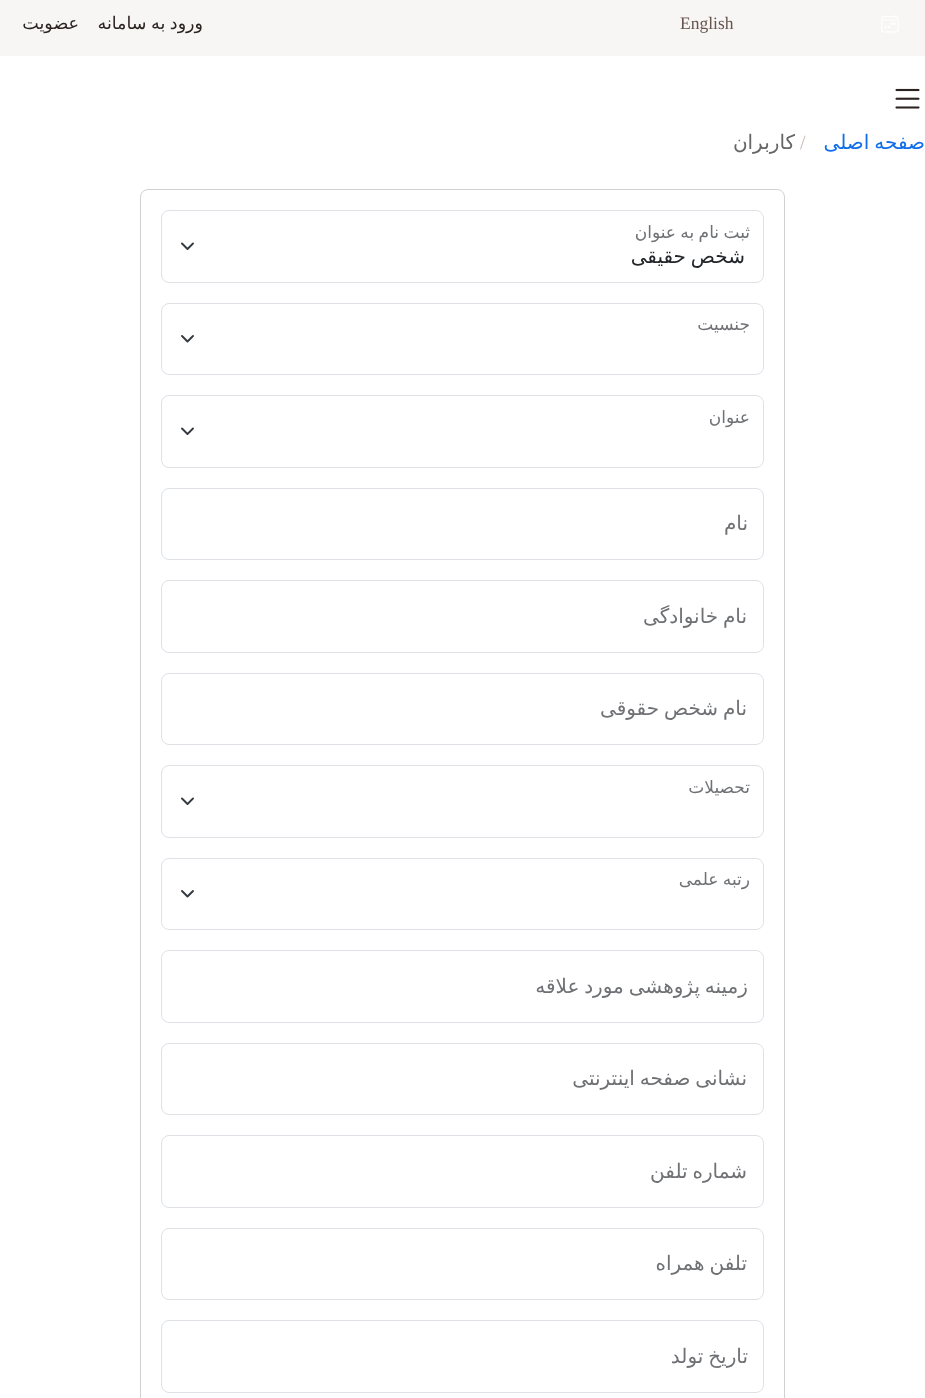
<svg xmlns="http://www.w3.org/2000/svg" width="925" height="1398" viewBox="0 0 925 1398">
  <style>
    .t1 { font: 17.5px Liberation Serif; fill: #65534c; }
    .t2 { font: 17.5px DejaVu Sans; direction: rtl; fill: #2b2320; }
    .t3 { font: 20px DejaVu Sans; direction: rtl; fill: #106eea; }
    .t4 { font: 20px Liberation Serif; fill: #c8bab5; }
    .t5 { font: 20px DejaVu Sans; direction: rtl; fill: #666; }
    .t6 { font: 17px DejaVu Sans; direction: rtl; fill: #6f7174; }
    .t7 { font: 20px DejaVu Sans; direction: rtl; fill: #212529; }
    .t8 { font: 20px DejaVu Sans; direction: rtl; fill: #6f7174; }
  </style>
  <rect width="100%" height="100%" fill="#fff"/>
  <rect x="0" y="0" width="925" height="56" fill="#f8f6f5"/>
  <image x="881" y="15" width="18" height="18" href="images/1.png"/>
  <text x="680" y="29" class="t1">English</text>
  <text x="203" y="29" word-spacing="-1" class="t2">ورود به سامانه</text>
  <text x="79" y="29" class="t2">عضویت</text>
  <image x="895" y="88" width="25" height="21" href="images/2.png"/>
  <text x="925" y="149" word-spacing="-1.5" class="t3">صفحه اصلی</text>
  <text x="800" y="149" class="t4">/</text>
  <text x="795" y="149" class="t5">کاربران</text>
  <rect x="140.5" y="189.5" width="644" height="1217" rx="7.5" fill="none" stroke="#d2d2d2"/>
  <path d="M182 243.5L187.5 249L193 243.5" fill="none" stroke="#343a40" stroke-width="1.9" stroke-linecap="round" stroke-linejoin="round"/>
  <rect x="161.5" y="210.5" width="602" height="72" rx="7.5" fill="none" stroke="#dee2e6"/>
  <text x="750" y="238" word-spacing="-1" class="t6">ثبت نام به عنوان</text>
  <text x="745" y="263" word-spacing="-1.5" class="t7">شخص حقیقی</text>
  <path d="M182 336L187.5 341.5L193 336" fill="none" stroke="#343a40" stroke-width="1.9" stroke-linecap="round" stroke-linejoin="round"/>
  <rect x="161.5" y="303.5" width="602" height="71" rx="7.5" fill="none" stroke="#dee2e6"/>
  <text x="750" y="330" class="t6">جنسیت</text>
  <path d="M182 428.5L187.5 434L193 428.5" fill="none" stroke="#343a40" stroke-width="1.9" stroke-linecap="round" stroke-linejoin="round"/>
  <rect x="161.5" y="395.5" width="602" height="72" rx="7.5" fill="none" stroke="#dee2e6"/>
  <text x="750" y="423" class="t6">عنوان</text>
  <rect x="161.5" y="488.5" width="602" height="71" rx="7.5" fill="none" stroke="#dee2e6"/>
  <text x="748" y="530" class="t8">نام</text>
  <rect x="161.5" y="580.5" width="602" height="72" rx="7.5" fill="none" stroke="#dee2e6"/>
  <text x="747" y="623" word-spacing="-1.5" class="t8">نام خانوادگی</text>
  <rect x="161.5" y="673.5" width="602" height="71" rx="7.5" fill="none" stroke="#dee2e6"/>
  <text x="747" y="715" word-spacing="-1.5" class="t8">نام شخص حقوقی</text>
  <path d="M182 798.5L187.5 804L193 798.5" fill="none" stroke="#343a40" stroke-width="1.9" stroke-linecap="round" stroke-linejoin="round"/>
  <rect x="161.5" y="765.5" width="602" height="72" rx="7.5" fill="none" stroke="#dee2e6"/>
  <text x="750" y="793" class="t6">تحصیلات</text>
  <path d="M182 891L187.5 896.5L193 891" fill="none" stroke="#343a40" stroke-width="1.9" stroke-linecap="round" stroke-linejoin="round"/>
  <rect x="161.5" y="858.5" width="602" height="71" rx="7.5" fill="none" stroke="#dee2e6"/>
  <text x="750" y="885" word-spacing="-1" class="t6">رتبه علمی</text>
  <rect x="161.5" y="950.5" width="602" height="72" rx="7.5" fill="none" stroke="#dee2e6"/>
  <text x="748" y="993" word-spacing="-1.5" class="t8">زمینه پژوهشی مورد علاقه</text>
  <rect x="161.5" y="1043.5" width="602" height="71" rx="7.5" fill="none" stroke="#dee2e6"/>
  <text x="747" y="1085" word-spacing="-1.5" class="t8">نشانی صفحه اینترنتی</text>
  <rect x="161.5" y="1135.5" width="602" height="72" rx="7.5" fill="none" stroke="#dee2e6"/>
  <text x="747" y="1178" word-spacing="-1.5" class="t8">شماره تلفن</text>
  <rect x="161.5" y="1228.5" width="602" height="71" rx="7.5" fill="none" stroke="#dee2e6"/>
  <text x="747" y="1270" word-spacing="-1.5" class="t8">تلفن همراه</text>
  <rect x="161.5" y="1320.5" width="602" height="72" rx="7.5" fill="none" stroke="#dee2e6"/>
  <text x="748" y="1363" word-spacing="-1.5" class="t8">تاریخ تولد</text>
</svg>
